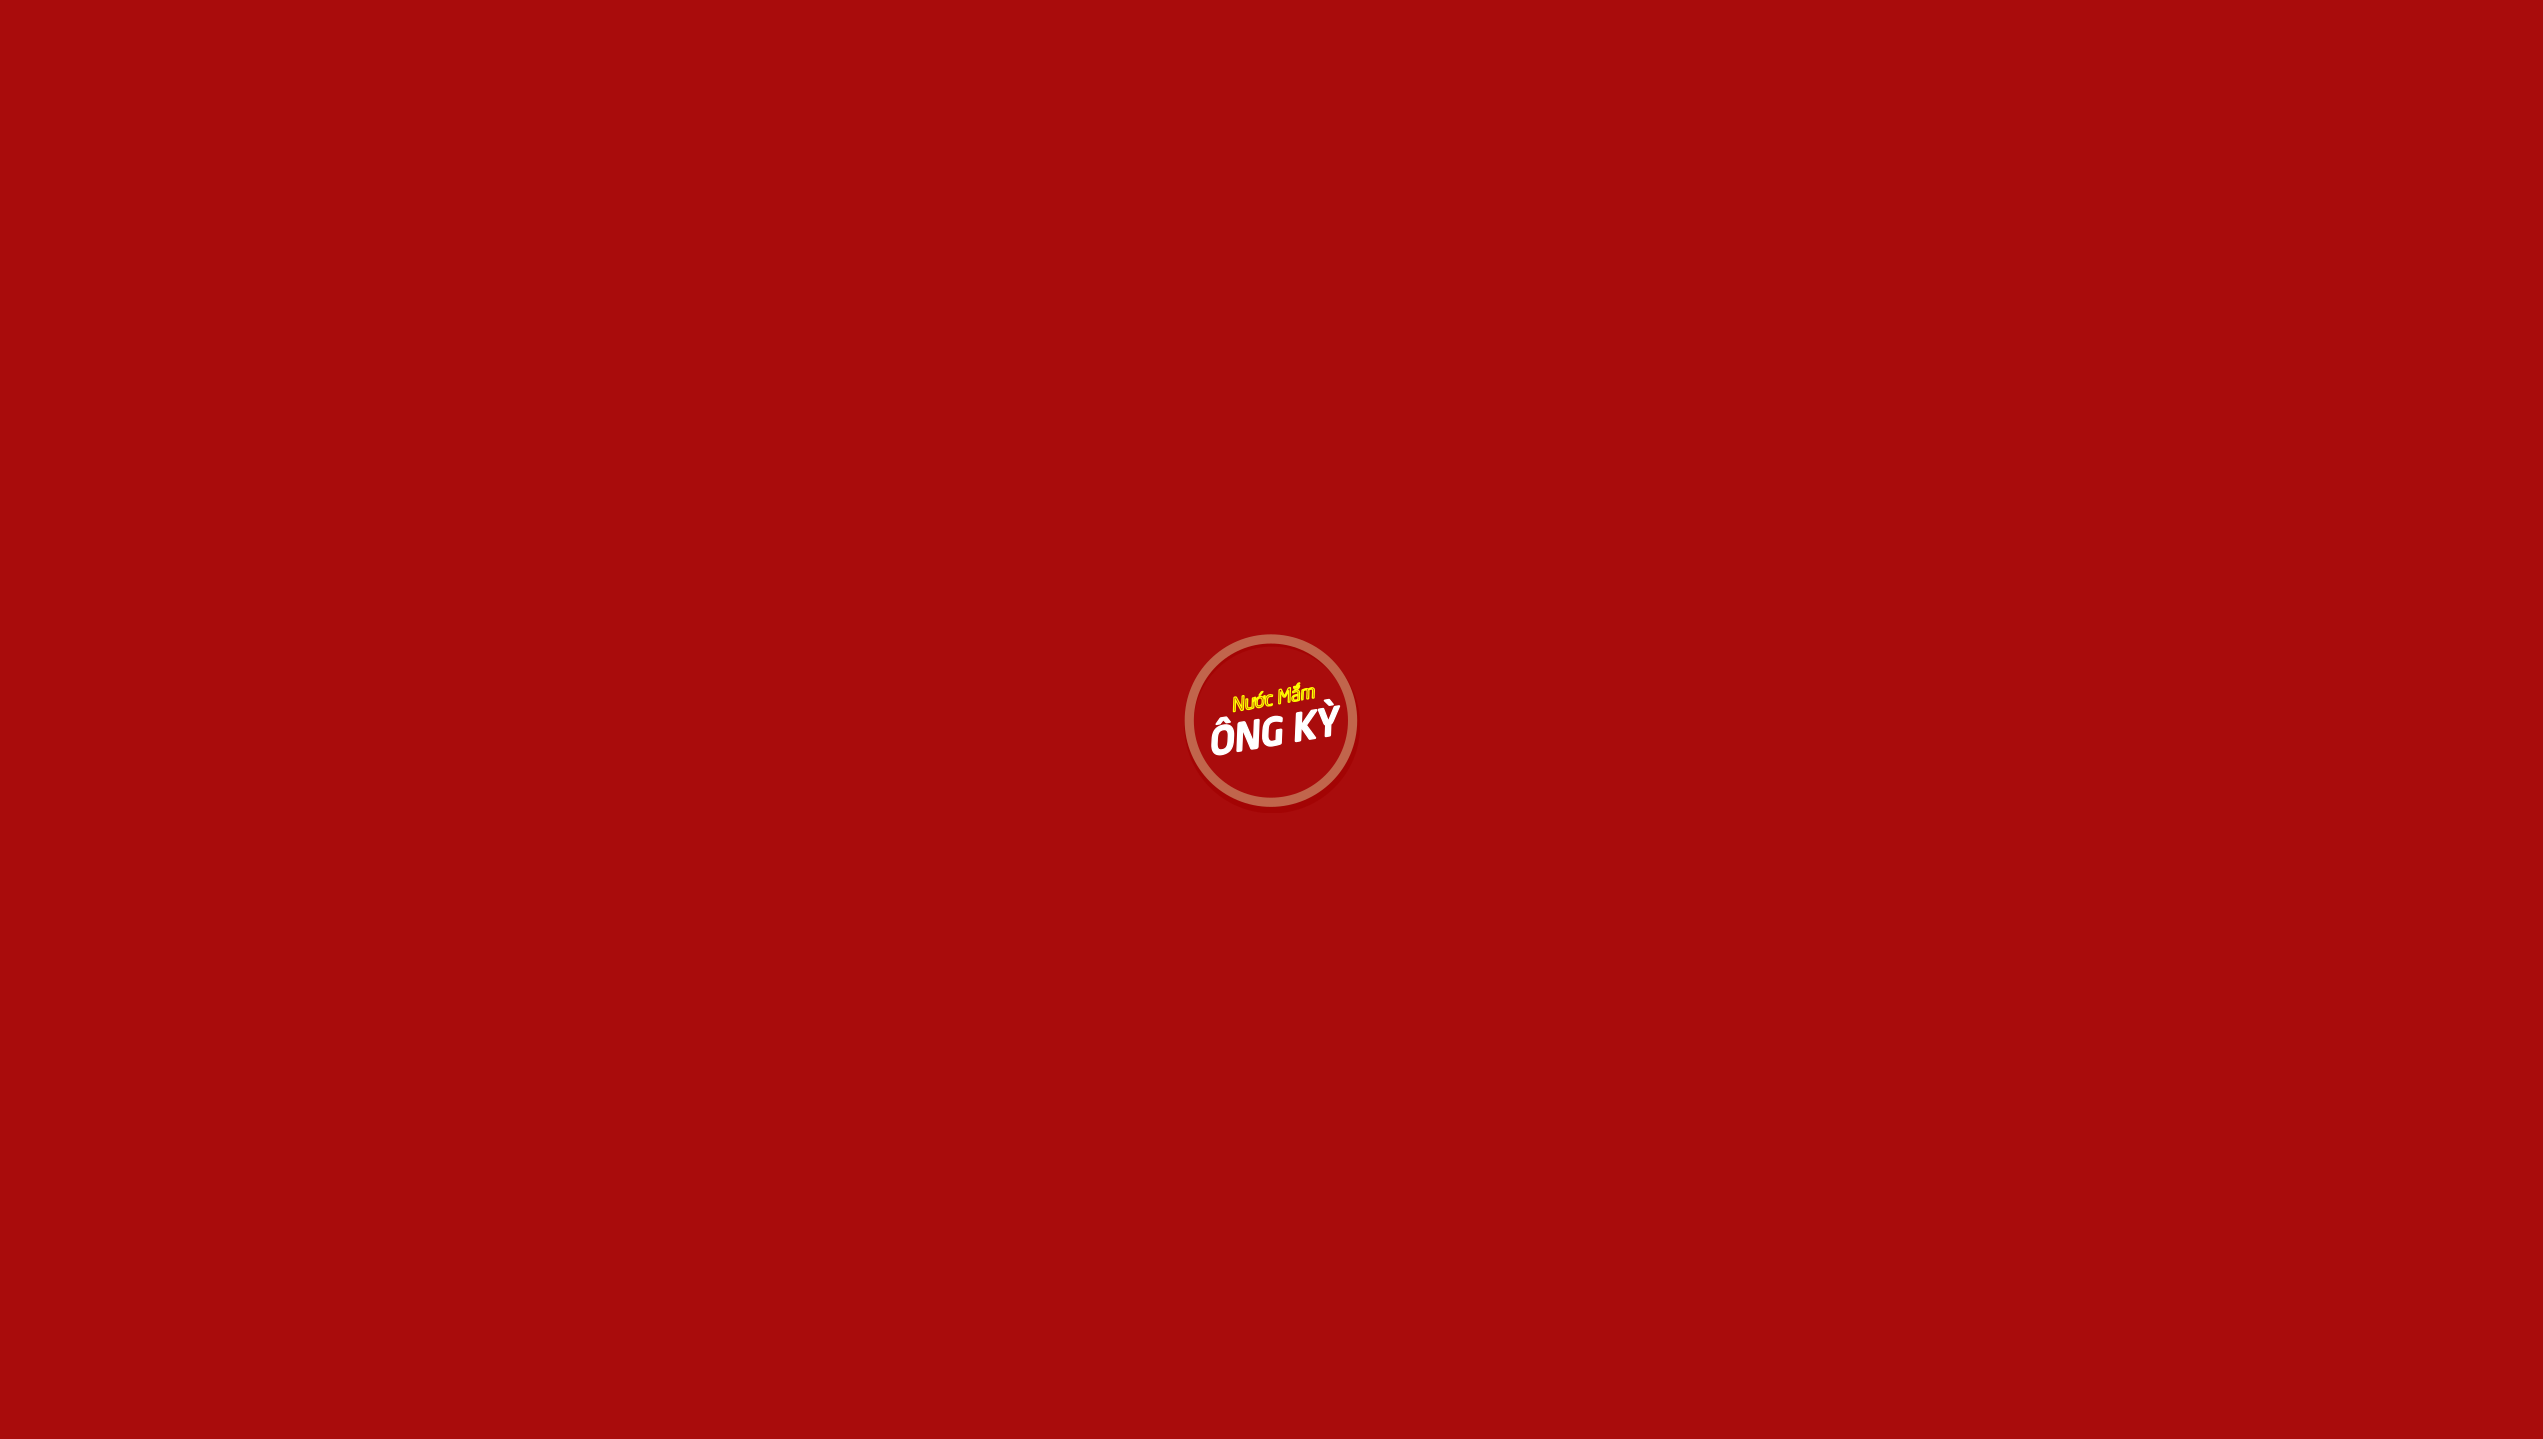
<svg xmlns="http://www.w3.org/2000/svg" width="2543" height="1439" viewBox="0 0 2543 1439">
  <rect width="100%" height="100%" fill="#a90c0c"/>
  <image x="1184" y="634" width="176" height="179" href="images/1.png"/>
</svg>
